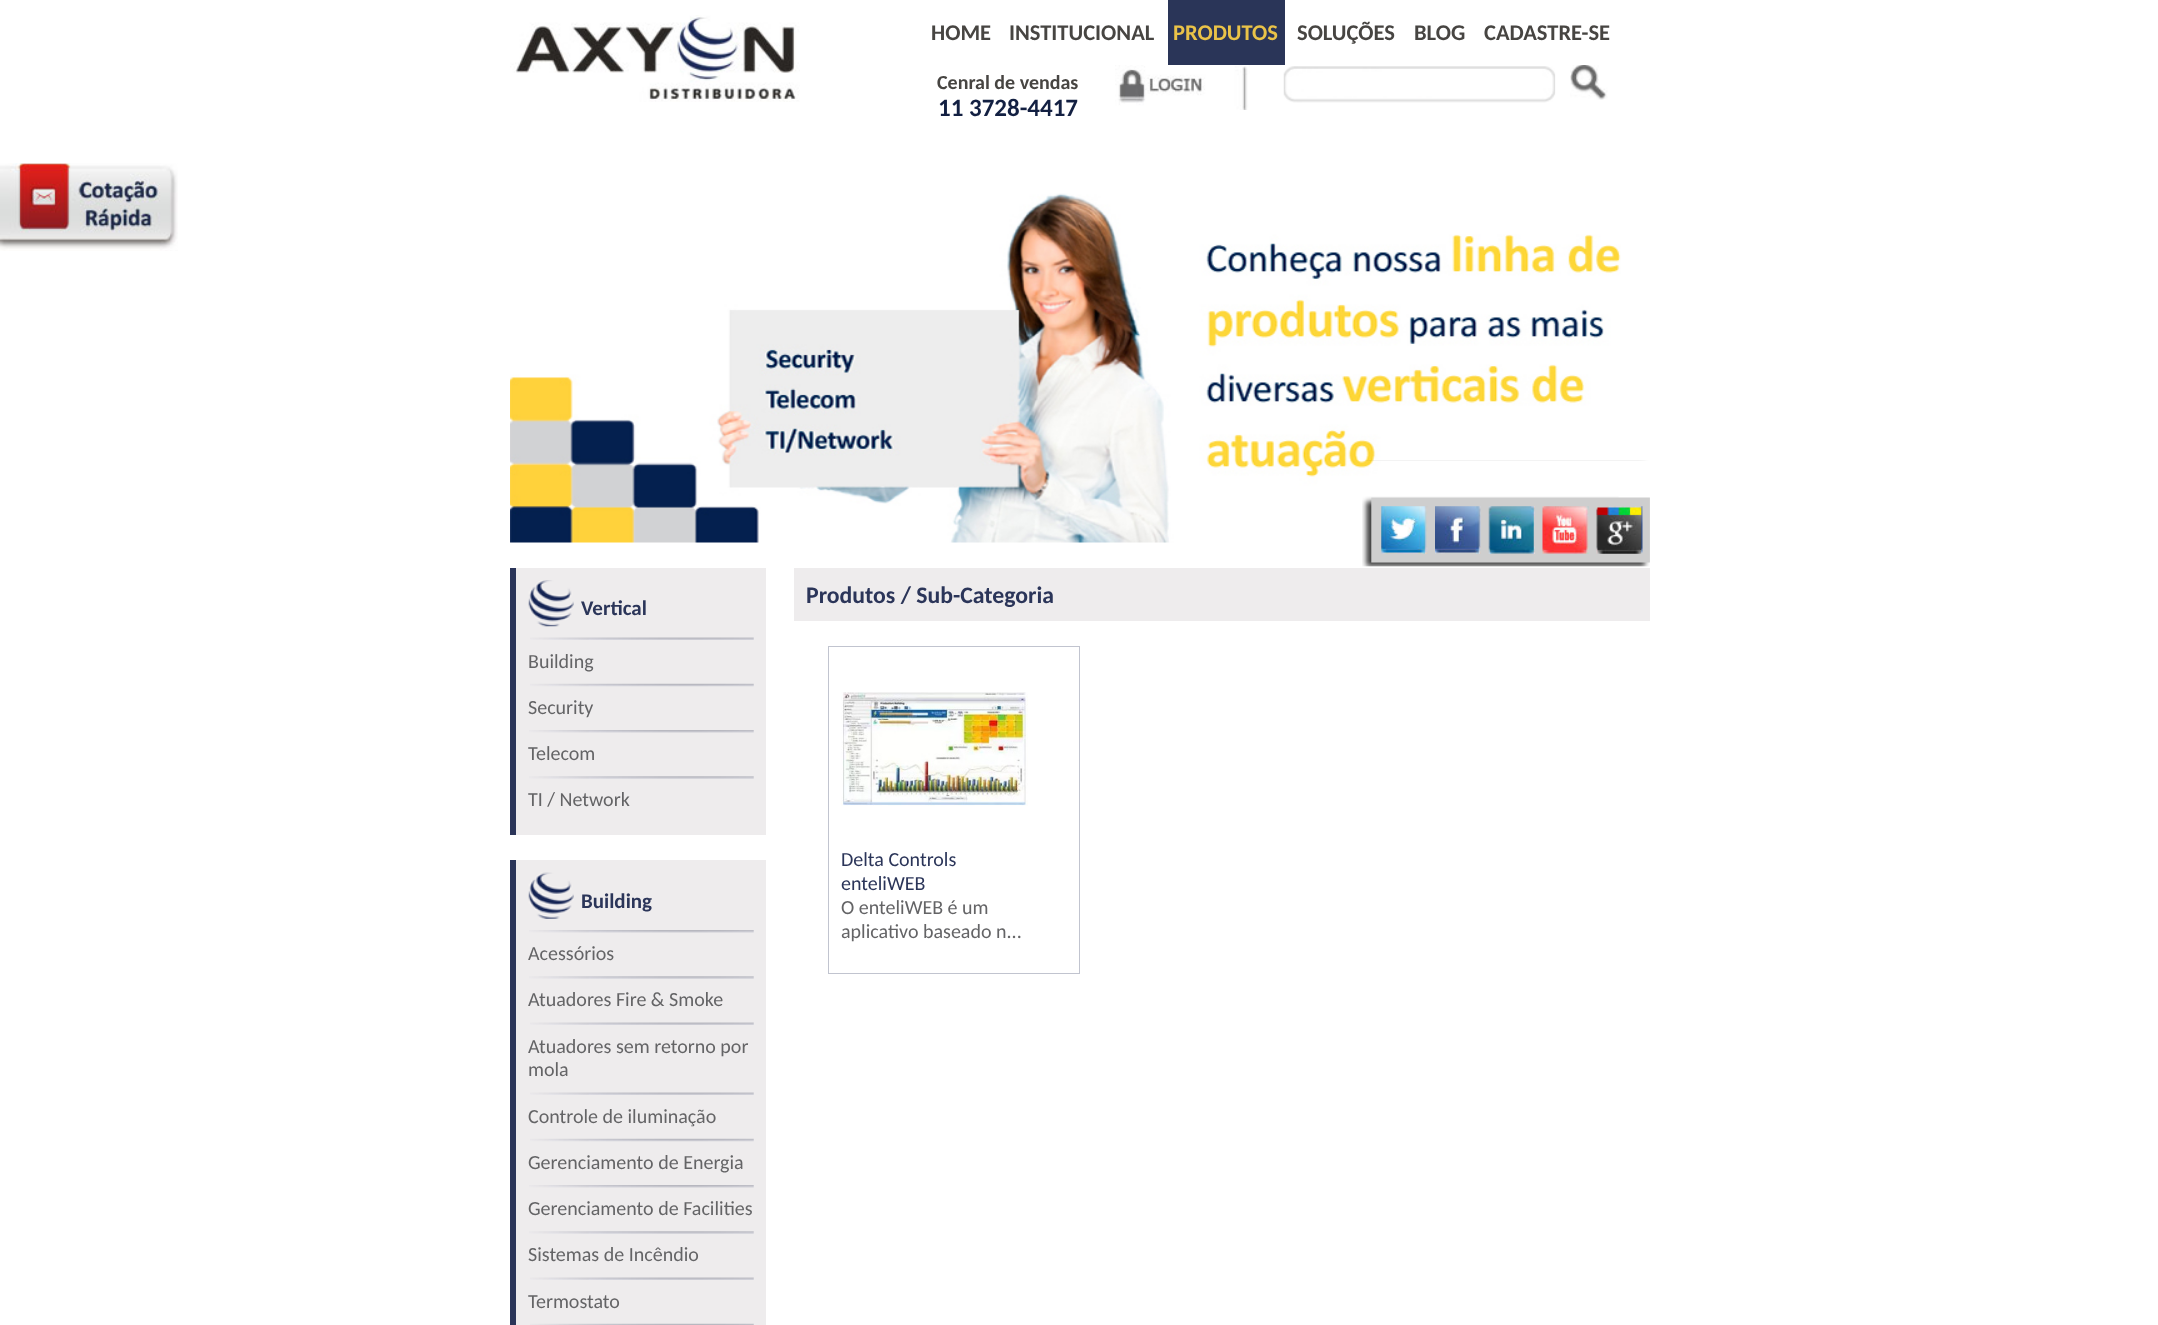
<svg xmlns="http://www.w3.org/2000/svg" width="2158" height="1325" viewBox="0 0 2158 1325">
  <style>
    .t1 { font: bold 22.5px Carlito; fill: #474542; }
    .t2 { font: bold 22.5px Carlito; fill: #eac348; }
    .t3 { font: bold 20px Carlito; fill: #474542; }
    .t4 { font: bold 25px Carlito; fill: #132042; }
    .t5 { font: bold 21px Carlito; fill: #2b3559; }
    .t6 { font: 20px Carlito; fill: #646466; }
    .t7 { font: bold 23.75px Carlito; fill: #2b3559; }
    .t8 { font: 20px Carlito; fill: #2b3559; }
  </style>
  <rect width="100%" height="100%" fill="#fff"/>
  <image x="510" y="15" width="290" height="87" href="images/1.png"/>
  <text x="931" y="40" class="t1">HOME</text>
  <text x="1009" y="40" class="t1">INSTITUCIONAL</text>
  <rect x="1168" y="0" width="117" height="65" fill="#2a3558"/>
  <text x="1173" y="40" class="t2">PRODUTOS</text>
  <text x="1297" y="40" class="t1">SOLUÇÕES</text>
  <text x="1414" y="40" class="t1">BLOG</text>
  <text x="1484" y="40" class="t1">CADASTRE-SE</text>
  <text x="937" y="89" class="t3">Cenral de vendas</text>
  <text x="938" y="116" class="t4">11 3728-4417</text>
  <image x="1115" y="65" width="135" height="45" href="images/2.png"/>
  <image x="1283" y="66" width="273" height="37" href="images/3.png"/>
  <rect x="1291" y="70" width="1" height="1" fill="#fff"/>
  <image x="1570" y="65" width="38" height="35" href="images/4.png"/>
  <image x="0" y="163" width="178" height="88" href="images/5.png"/>
  <image x="510" y="193" width="1111" height="350" href="images/6.png"/>
  <image x="1362" y="460" width="288" height="107" href="images/7.png"/>
  <image x="1381" y="506" width="47" height="48" href="images/8.png"/>
  <image x="1435" y="506" width="46" height="48" href="images/9.png"/>
  <image x="1488" y="506" width="47" height="48" href="images/10.png"/>
  <image x="1542" y="506" width="47" height="48" href="images/11.png"/>
  <image x="1596" y="506" width="47" height="48" href="images/12.png"/>
  <rect x="516" y="568" width="250" height="267" fill="#eeeced"/>
  <rect x="510" y="568" width="6" height="267" fill="#2b3559"/>
  <image x="528" y="580" width="46" height="47" href="images/13.png"/>
  <text x="581" y="615" class="t5">Vertical</text>
  <image x="530" y="637" width="224" height="3" href="images/14.png"/>
  <text x="528" y="668" class="t6">Building</text>
  <image x="530" y="683" width="224" height="4" href="images/15.png"/>
  <text x="528" y="714" class="t6">Security</text>
  <image x="529" y="730" width="225" height="3" href="images/16.png"/>
  <text x="528" y="760" class="t6">Telecom</text>
  <image x="529" y="776" width="225" height="3" href="images/17.png"/>
  <text x="528" y="806" class="t6">TI / Network</text>
  <rect x="516" y="860" width="250" height="465" fill="#eeeced"/>
  <rect x="510" y="860" width="6" height="465" fill="#2b3559"/>
  <image x="528" y="872" width="46" height="47" href="images/18.png"/>
  <text x="581" y="908" class="t5">Building</text>
  <image x="529" y="930" width="225" height="3" href="images/16.png"/>
  <text x="528" y="960" class="t6">Acessórios</text>
  <image x="529" y="976" width="225" height="3" href="images/17.png"/>
  <text x="528" y="1006" class="t6">Atuadores Fire &amp; Smoke</text>
  <image x="530" y="1022" width="224" height="3" href="images/14.png"/>
  <text x="528" y="1053" class="t6">Atuadores sem retorno por</text>
  <text x="528" y="1076" class="t6">mola</text>
  <image x="530" y="1092" width="224" height="3" href="images/14.png"/>
  <text x="528" y="1123" class="t6">Controle de iluminação</text>
  <image x="530" y="1138" width="224" height="4" href="images/15.png"/>
  <text x="528" y="1169" class="t6">Gerenciamento de Energia</text>
  <image x="529" y="1185" width="225" height="3" href="images/16.png"/>
  <text x="528" y="1215" class="t6">Gerenciamento de Facilities</text>
  <image x="529" y="1231" width="225" height="3" href="images/17.png"/>
  <text x="528" y="1261" class="t6">Sistemas de Incêndio</text>
  <image x="530" y="1277" width="224" height="3" href="images/14.png"/>
  <text x="528" y="1308" class="t6">Termostato</text>
  <image x="530" y="1323" width="224" height="2" href="images/19.png"/>
  <rect x="794" y="568" width="856" height="53" fill="#eeeced"/>
  <text x="806" y="603" class="t7">Produtos / Sub-Categoria</text>
  <rect x="828.5" y="646.5" width="251" height="327" fill="none" stroke="#c1c4cf"/>
  <image x="841" y="692" width="187" height="114" href="images/20.png"/>
  <text x="841" y="866" class="t8">Delta Controls</text>
  <text x="841" y="890" class="t8">enteliWEB</text>
  <text x="841" y="914" class="t6">O enteliWEB é um</text>
  <text x="841" y="938" class="t6">aplicativo baseado n...</text>
</svg>
